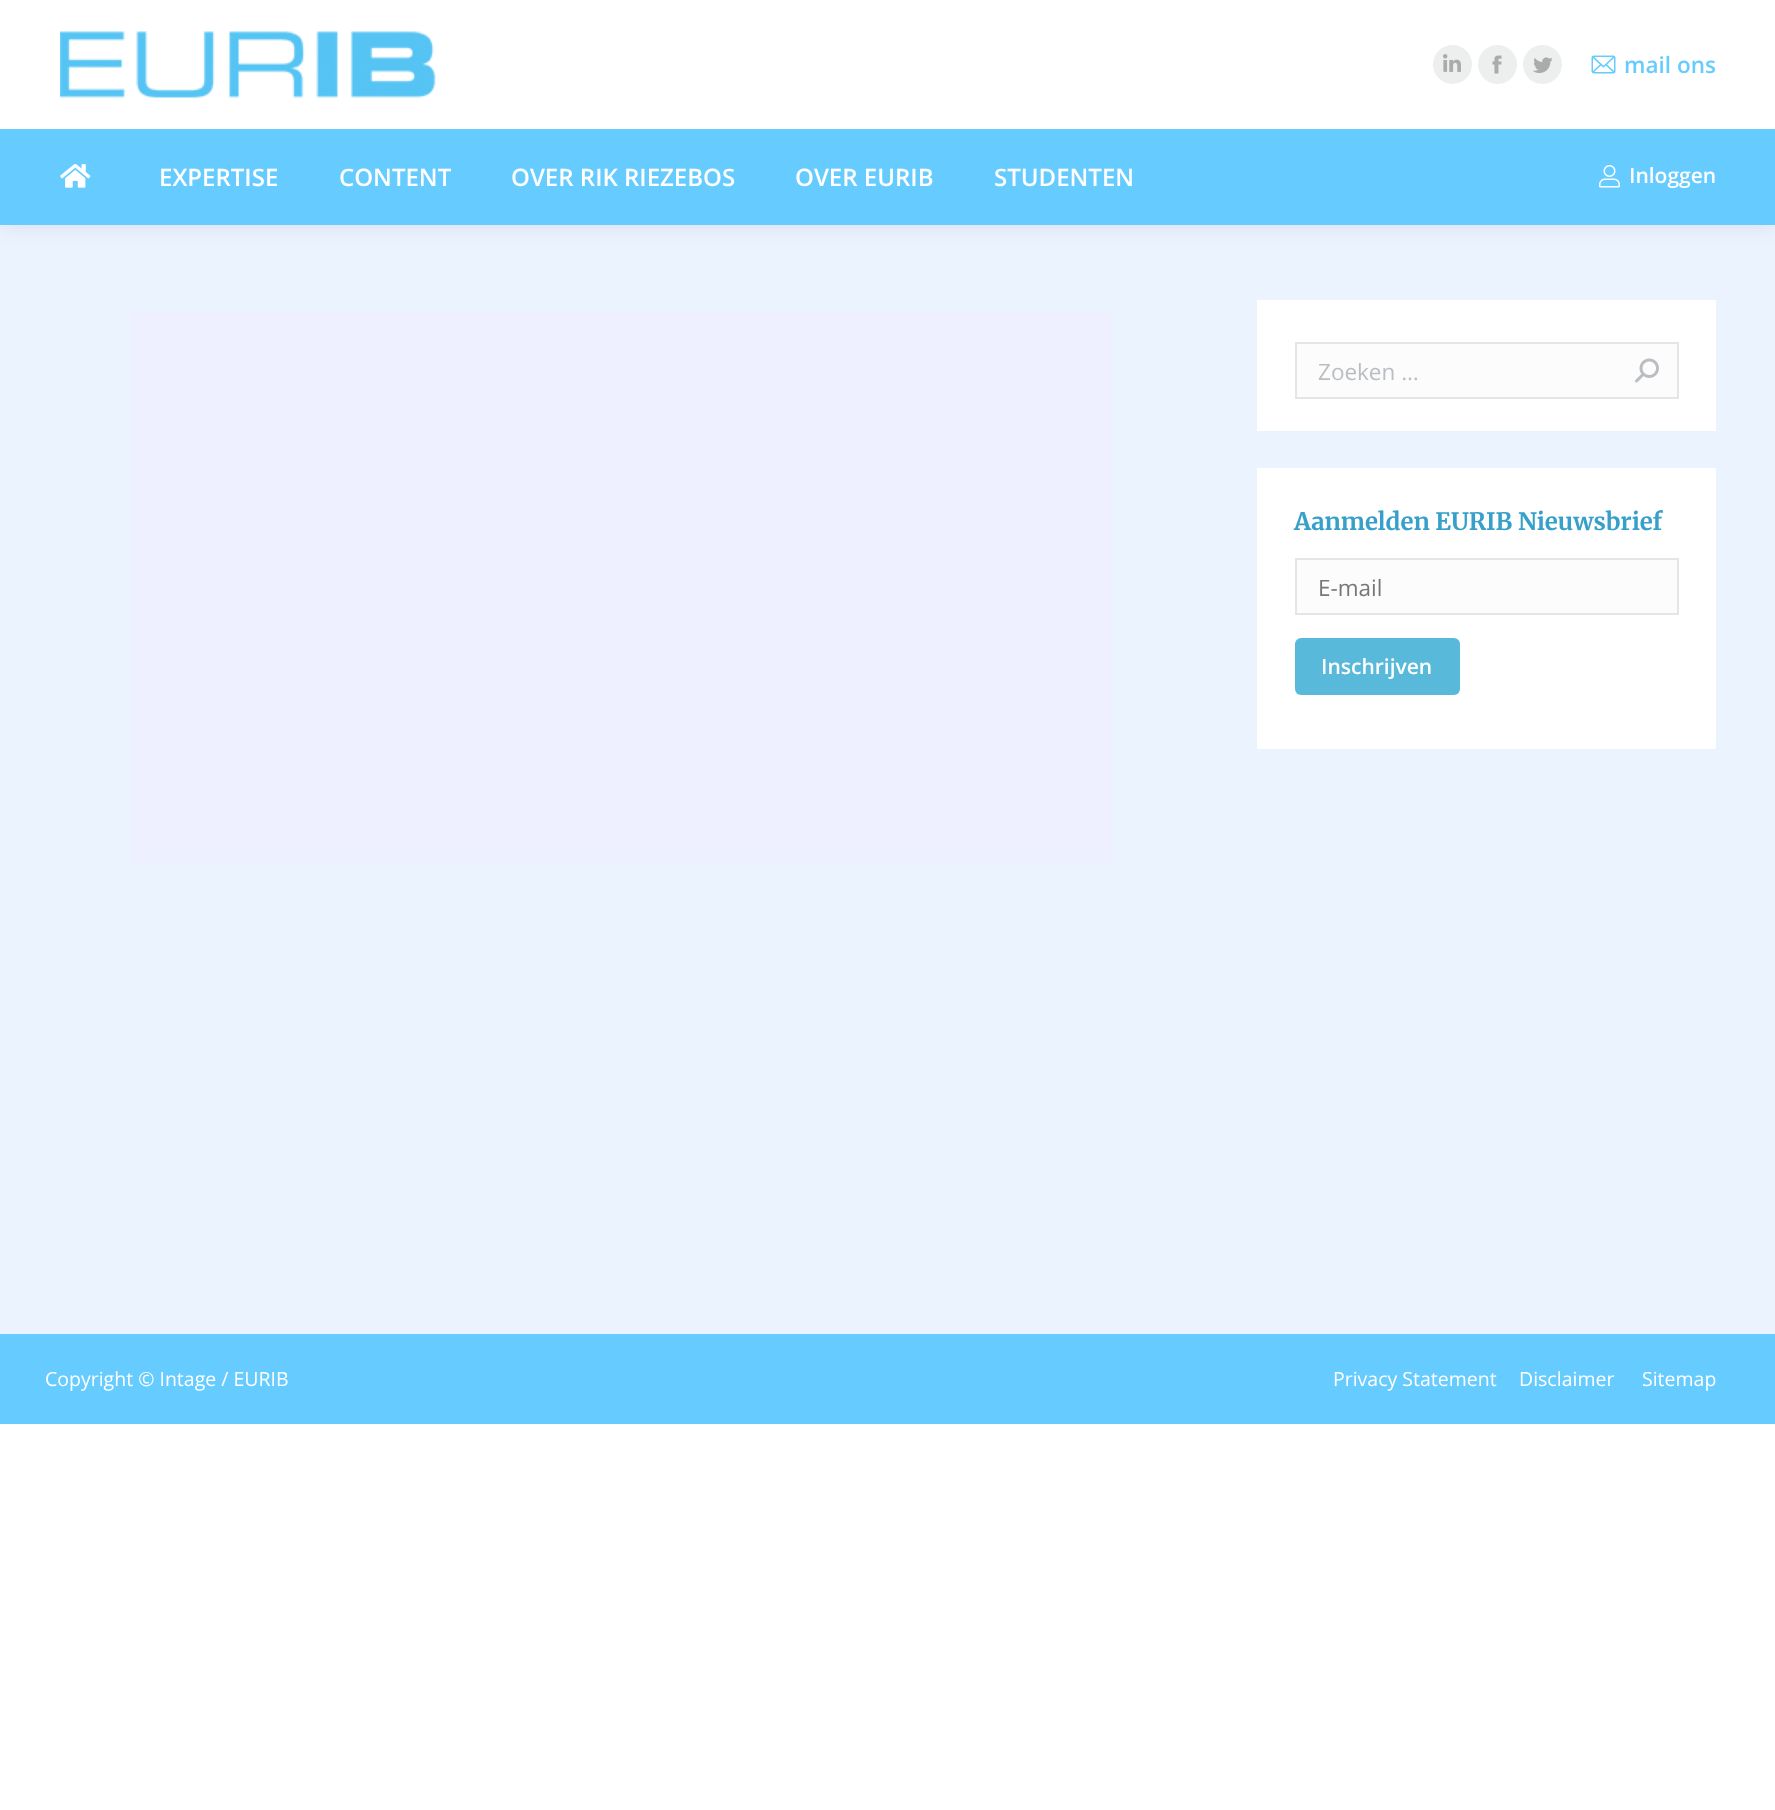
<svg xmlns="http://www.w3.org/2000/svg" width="1775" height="1810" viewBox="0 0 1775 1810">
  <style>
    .t1 { font: 600 22.5px Open Sans; fill: #6cf; }
    .t2 { font: 600 24px Open Sans; fill: #fff; }
    .t3 { font: 600 21px Open Sans; fill: #fff; }
    .t4 { font: 22.5px Open Sans; fill: #babdc1; }
    .t5 { font: bold 24px Merriweather; fill: #36a0ca; }
    .t6 { font: 22.5px Open Sans; fill: #777; }
    .t7 { font: 19.5px Open Sans; fill: #fff; }
  </style>
  <rect width="100%" height="100%" fill="#fff"/>
  <rect x="0" y="225" width="1775" height="1109" fill="#ebf3fe"/>
  <rect x="-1" y="-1" width="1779" height="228" fill="#00000012" filter="blur(11px)"/>
  <rect x="0" y="0" width="1775" height="129" fill="#fff"/>
  <image x="60" y="31" width="376" height="67" href="images/1.png"/>
  <circle cx="1452.5" cy="64.5" r="19.5" fill="#edeeee"/>
  <image x="1443" y="54" width="18" height="18" href="images/2.png"/>
  <circle cx="1497.5" cy="64.5" r="19.5" fill="#edeeee"/>
  <image x="1492" y="55" width="10" height="19" href="images/3.png"/>
  <circle cx="1542.5" cy="64.5" r="19.5" fill="#edeeee"/>
  <image x="1533" y="57" width="20" height="16" href="images/4.png"/>
  <image x="1591" y="55" width="25" height="19" href="images/5.png"/>
  <text x="1624" y="73" class="t1">mail ons</text>
  <rect x="0" y="129" width="1775" height="96" fill="#6cf"/>
  <image x="60" y="164" width="31" height="24" href="images/6.png"/>
  <text x="159" y="186" class="t2">EXPERTISE</text>
  <text x="339" y="186" class="t2">CONTENT</text>
  <text x="511" y="186" class="t2">OVER RIK RIEZEBOS</text>
  <text x="795" y="186" class="t2">OVER EURIB</text>
  <text x="994" y="186" class="t2">STUDENTEN</text>
  <image x="1599" y="165" width="21" height="23" href="images/7.png"/>
  <text x="1629" y="183" class="t3">Inloggen</text>
  <rect x="131" y="311" width="981" height="552" fill="#eef0ff"/>
  <rect x="1257" y="300" width="459" height="131" fill="#fff"/>
  <rect x="1296" y="343" width="382" height="55" fill="#fcfcfc" stroke="#e4e5e7" stroke-width="2"/>
  <text x="1318" y="380" class="t4">Zoeken …</text>
  <image x="1635" y="358" width="24" height="25" href="images/8.png"/>
  <rect x="1257" y="468" width="459" height="281" fill="#fff"/>
  <text x="1294" y="530" class="t5">Aanmelden EURIB Nieuwsbrief</text>
  <rect x="1296" y="559" width="382" height="55" fill="#fcfcfc" stroke="#e4e5e7" stroke-width="2"/>
  <text x="1318" y="596" class="t6">E-mail</text>
  <rect x="1295" y="638" width="165" height="57" rx="6" fill="#58b9da"/>
  <text x="1321" y="674" class="t3">Inschrijven</text>
  <rect x="0" y="1334" width="1775" height="90" fill="#6cf"/>
  <text x="45" y="1386" class="t7">Copyright © Intage / EURIB</text>
  <text x="1333" y="1386" class="t7">Privacy Statement</text>
  <text x="1519" y="1386" class="t7">Disclaimer</text>
  <text x="1642" y="1386" class="t7">Sitemap</text>
</svg>
